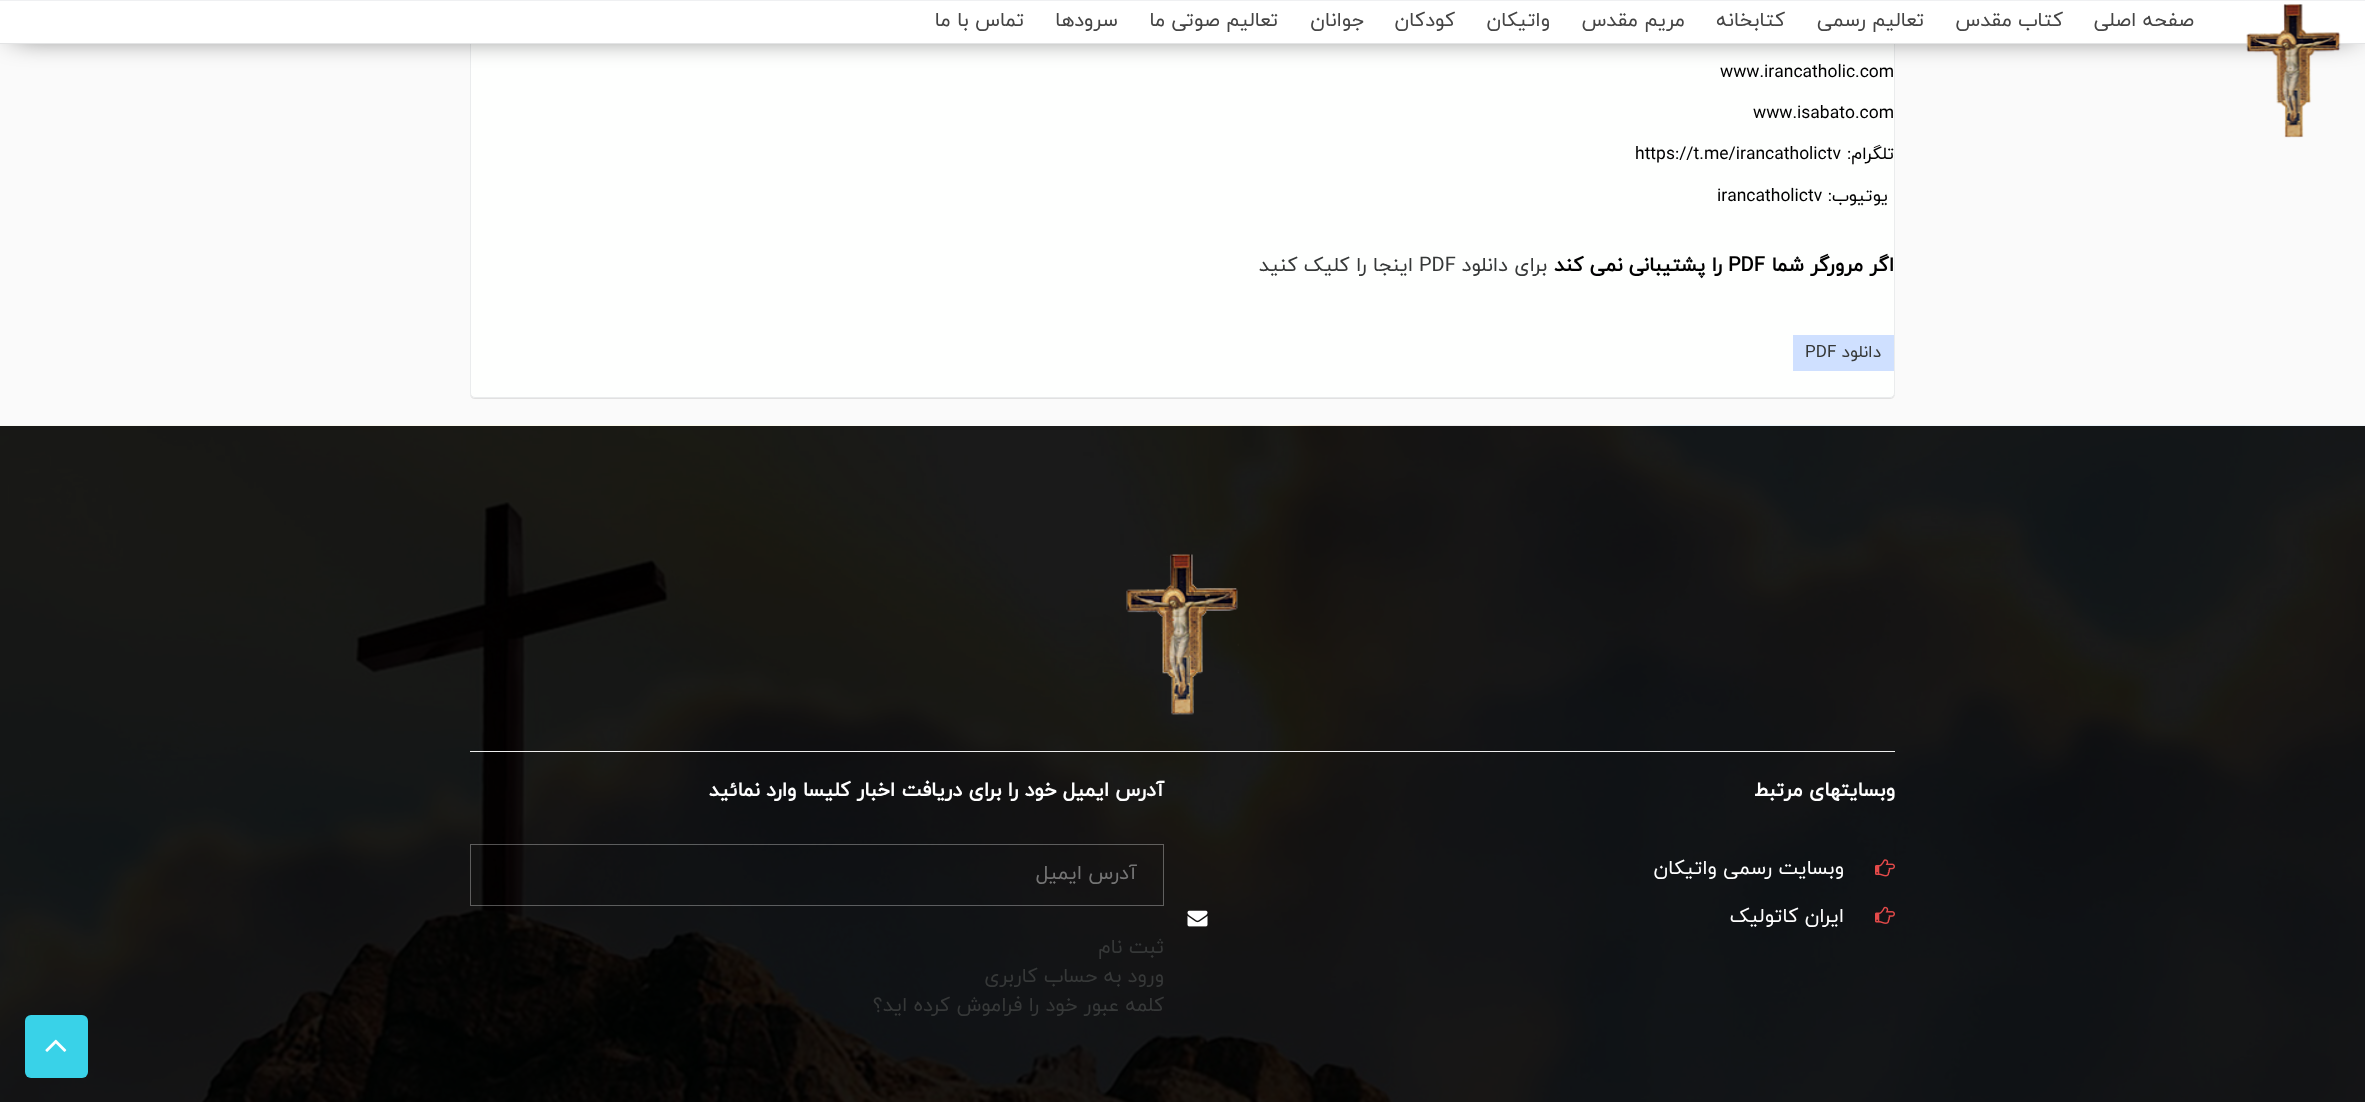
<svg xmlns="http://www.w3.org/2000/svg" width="2365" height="1102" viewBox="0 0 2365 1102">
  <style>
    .t1 { font: 20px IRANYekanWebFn; direction: rtl; fill: #454545; }
    .t2 { font: 17.5px IRANYekanWebFn; fill: #000; }
    .t3 { font: 17.5px IRANYekanWebFn; direction: rtl; fill: #000; }
    .t4 { font: bold 20px IRANYekanWebFn; direction: rtl; fill: #000; }
    .t5 { font: bold 20px IRANYekanWebFn; fill: #000; }
    .t6 { font: 20px IRANYekanWebFn; direction: rtl; fill: #363838; }
    .t7 { font: 20px IRANYekanWebFn; fill: #363838; }
    .t8 { font: 17px IRANYekanWebFn; direction: rtl; fill: #363838; }
    .t9 { font: 17px IRANYekanWebFn; fill: #363838; }
    .t10 { font: bold 20px IRANYekanWebFn; direction: rtl; fill: #fff; }
    .t11 { font: 20px IRANYekanWebFn; direction: rtl; fill: #fff; }
    .t12 { font: 20px IRANYekanWebFn; direction: rtl; fill: #757575; }
  </style>
  <rect width="100%" height="100%" fill="#fafafa"/>
  <path d="M470 392C470 396 471 399 475 399H1890C1894 399 1895 396 1895 392C1895 395 1893 398 1890 398H475C472 398 470 395 470 392Z" fill="#e1e1e1"/>
  <rect x="470.5" y="-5.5" width="1424" height="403" rx="4.5" fill="#fefffe" stroke="#eaeced"/>
  <rect x="13" y="13" width="2340" height="18" fill="#000" filter="blur(15.5px)"/>
  <rect x="0" y="1" width="2365" height="42" fill="#fff"/>
  <rect x="0" y="0" width="2365" height="1" fill="#eff0f2"/>
  <rect x="0" y="43" width="2365" height="1" fill="#e3e4e5"/>
  <image x="2246" y="4" width="95" height="134" href="images/1.png"/>
  <text x="2194" y="26" class="t1">صفحه اصلی</text>
  <text x="2063" y="26" class="t1">کتاب مقدس</text>
  <text x="1924" y="26" class="t1">تعالیم رسمی</text>
  <text x="1785" y="26" class="t1">کتابخانه</text>
  <text x="1685" y="26" class="t1">مریم مقدس</text>
  <text x="1550" y="26" class="t1">واتیکان</text>
  <text x="1455" y="26" class="t1">کودکان</text>
  <text x="1364" y="26" class="t1">جوانان</text>
  <text x="1278" y="26" class="t1">تعالیم صوتی ما</text>
  <text x="1118" y="26" class="t1">سرودها</text>
  <text x="1024" y="26" class="t1">تماس با ما</text>
  <text x="1720" y="77" class="t2">www.irancatholic.com</text>
  <text x="1753" y="118" class="t2">www.isabato.com</text>
  <text x="1894" y="159" class="t3">تلگرام:</text>
  <text x="1635" y="159" class="t2">https://t.me/irancatholictv</text>
  <text x="1888" y="201" class="t3">یوتیوب:</text>
  <text x="1717" y="201" class="t2">irancatholictv</text>
  <text x="1894" y="271" class="t4">اگر مرورگر شما</text>
  <text x="1728" y="271" class="t5">PDF</text>
  <text x="1722" y="271" class="t4">را پشتیبانی نمی کند</text>
  <text x="1547" y="271" class="t6">برای دانلود</text>
  <text x="1419" y="271" class="t7">PDF</text>
  <text x="1413" y="271" class="t6">اینجا را کلیک کنید</text>
  <rect x="1793" y="335" width="101" height="36" fill="#cfe0ff"/>
  <text x="1881" y="357" class="t8">دانلود</text>
  <text x="1805" y="357" class="t9">PDF</text>
  <image x="0" y="425" width="2365" height="677" href="images/2.png"/>
  <image x="1126" y="554" width="113" height="161" href="images/3.png"/>
  <rect x="470" y="751" width="1425" height="1" fill="#eee"/>
  <text x="1895" y="796" class="t10">وبسایتهای مرتبط</text>
  <image x="1875" y="859" width="20" height="18" href="images/4.png"/>
  <text x="1844" y="874" class="t11">وبسایت رسمی واتیکان</text>
  <image x="1875" y="906" width="20" height="18" href="images/5.png"/>
  <text x="1844" y="922" class="t11">ایران کاتولیک</text>
  <text x="1164" y="796" class="t10">آدرس ایمیل خود را برای دریافت اخبار کلیسا وارد نمائید</text>
  <rect x="470.5" y="844.5" width="693" height="61" fill="none" stroke="#ffffff52"/>
  <text x="1137" y="879" class="t12">آدرس ایمیل</text>
  <image x="1187" y="910" width="21" height="17" href="images/6.png"/>
  <text x="1164" y="953" class="t6">ثبت نام</text>
  <text x="1164" y="982" class="t6">ورود به حساب کاربری</text>
  <text x="1164" y="1011" class="t6">کلمه عبور خود را فراموش کرده اید؟</text>
  <rect x="25" y="1015" width="63" height="63" rx="6" fill="#39d2e8"/>
  <image x="45" y="1039" width="22" height="13" href="images/7.png"/>
</svg>
